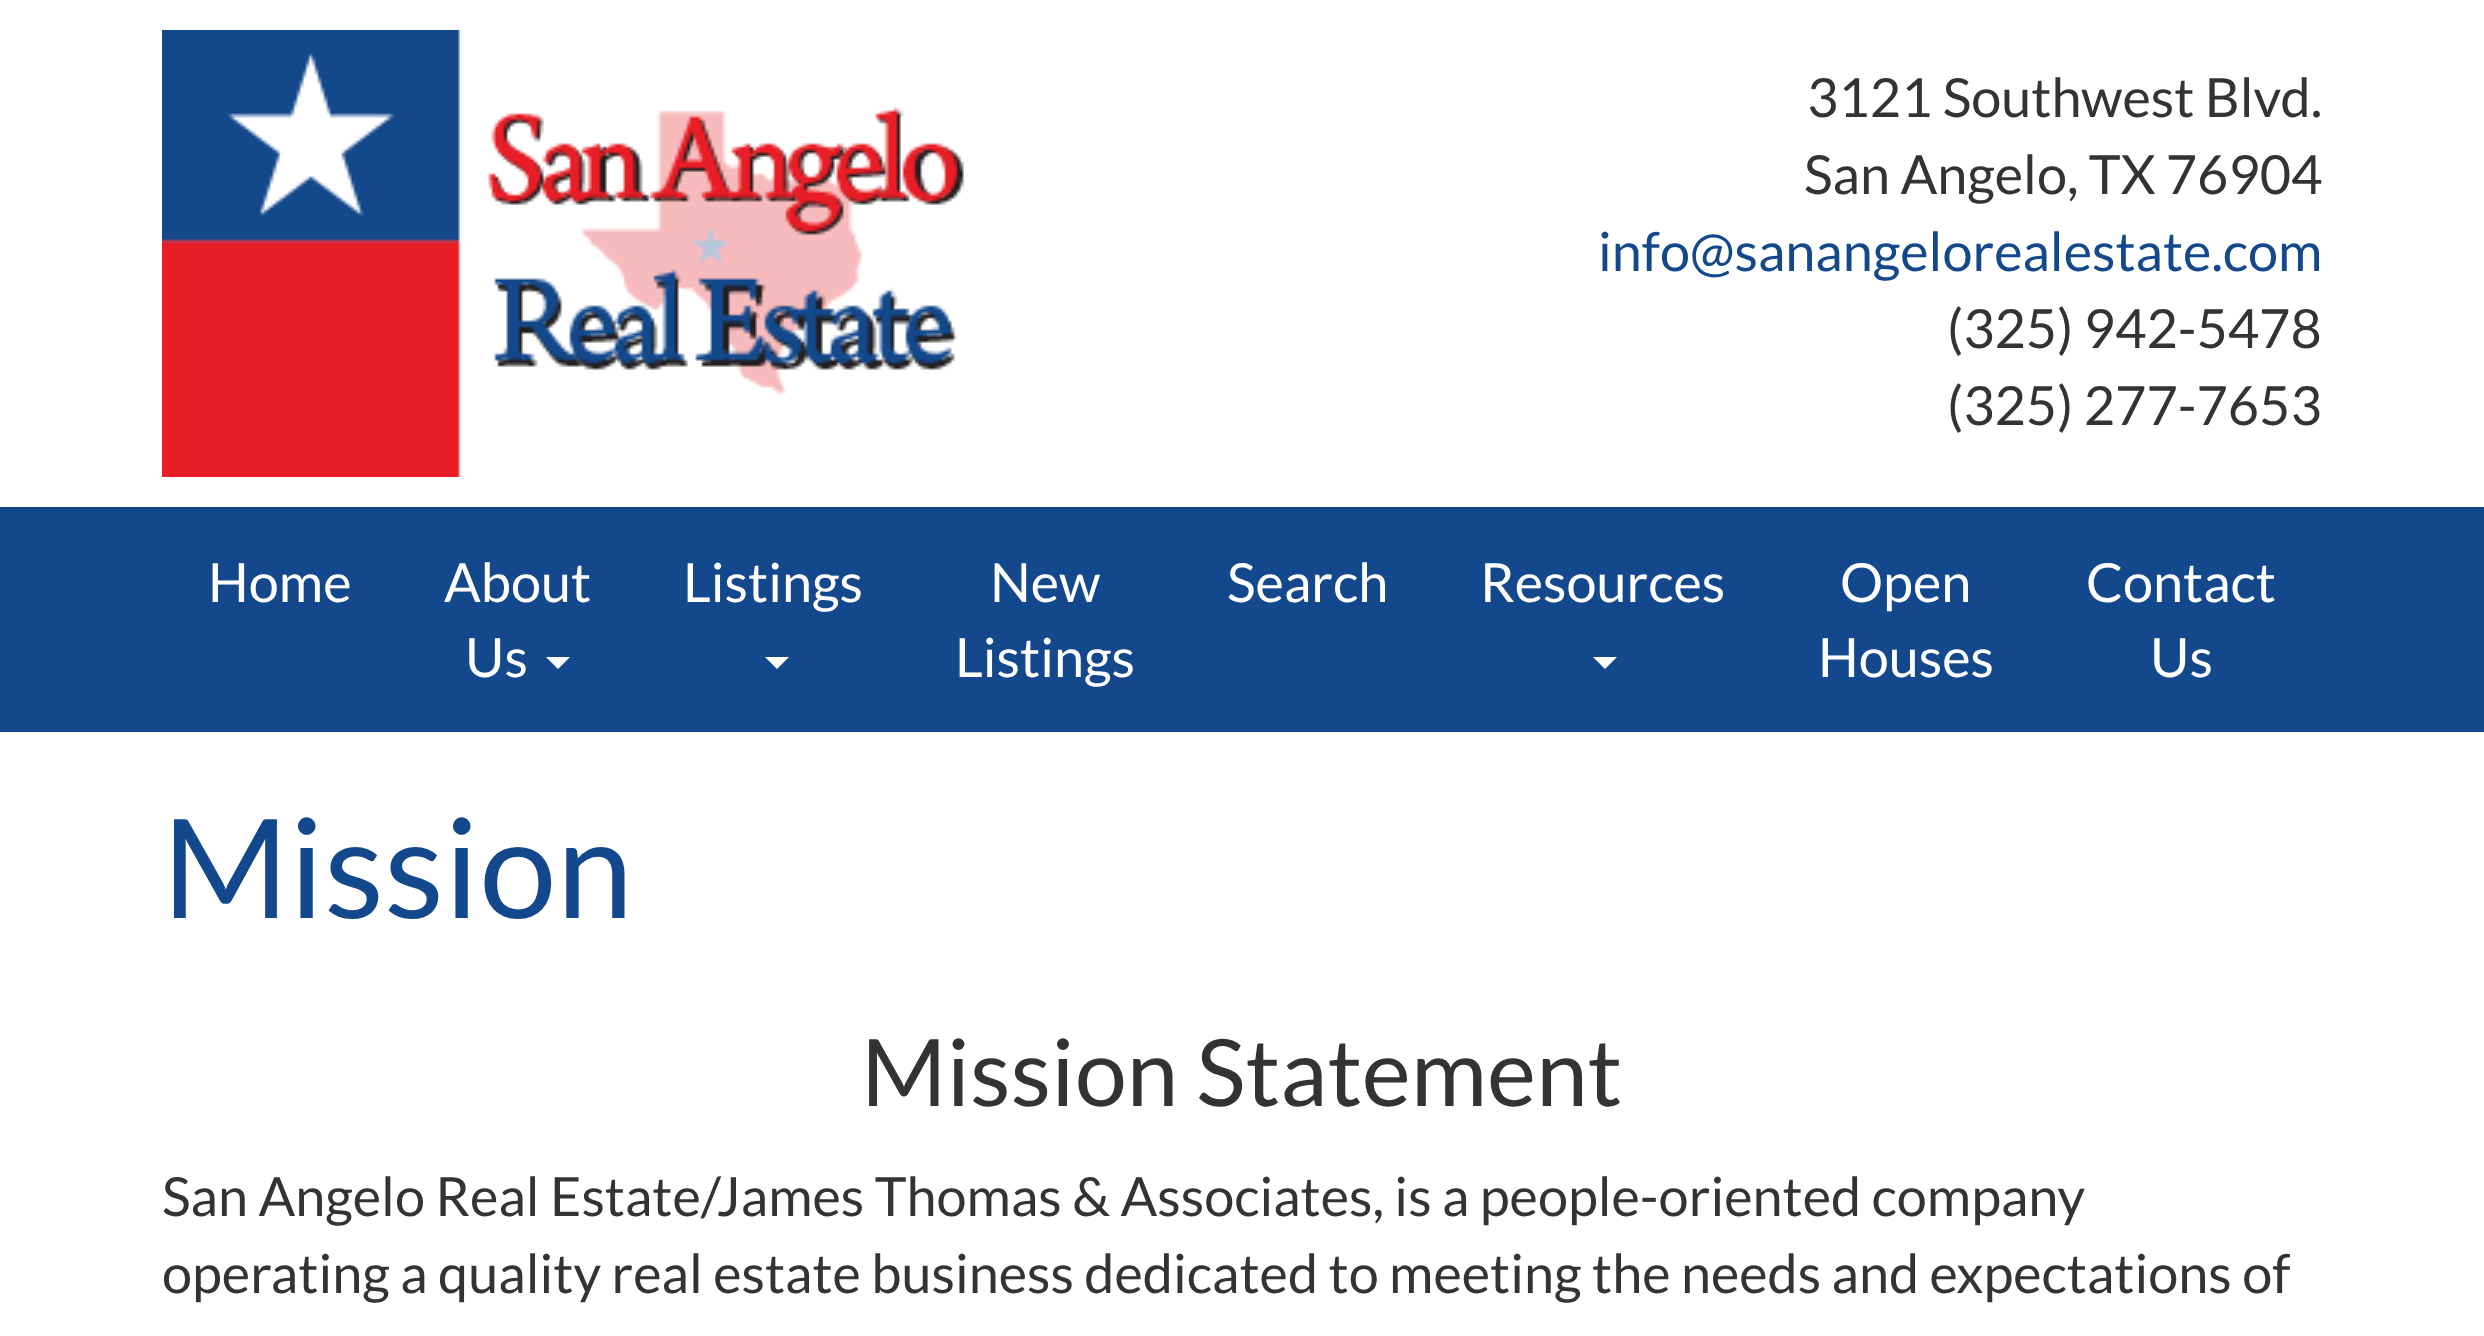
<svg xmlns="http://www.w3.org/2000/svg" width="2484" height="1336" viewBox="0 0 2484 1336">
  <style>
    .t1 { font: 54px Lato; fill: #333; }
    .t2 { font: 54px Lato; fill: #13488c; }
    .t3 { font: 54px Lato; fill: #fff; }
    .t4 { font: 138px Lato; fill: #13488c; }
    .t5 { font: 93px Lato; fill: #333; }
  </style>
  <rect width="100%" height="100%" fill="#fff"/>
  <image x="162" y="30" width="802" height="447" href="images/1.png"/>
  <text x="1807" y="117" class="t1">3121 Southwest Blvd.</text>
  <text x="1804" y="194" class="t1">San Angelo, TX 76904</text>
  <text x="1598" y="271" class="t2">info@sanangelorealestate.com</text>
  <text x="1947" y="348" class="t1">(325) 942-5478</text>
  <text x="1947" y="425" class="t1">(325) 277-7653</text>
  <rect x="0" y="507" width="2484" height="225" fill="#13488c"/>
  <text x="208" y="602" class="t3">Home</text>
  <text x="444" y="602" class="t3">About</text>
  <text x="465" y="677" class="t3">Us</text>
  <path d="M546 657H570L558 669Z" fill="#fff"/>
  <text x="683" y="602" class="t3">Listings</text>
  <path d="M765 657H789L777 669Z" fill="#fff"/>
  <text x="990" y="602" class="t3">New</text>
  <text x="955" y="677" class="t3">Listings</text>
  <text x="1227" y="602" class="t3">Search</text>
  <text x="1480" y="602" class="t3">Resources</text>
  <path d="M1593 657H1617L1605 669Z" fill="#fff"/>
  <text x="1840" y="602" class="t3">Open</text>
  <text x="1818" y="677" class="t3">Houses</text>
  <text x="2086" y="602" class="t3">Contact</text>
  <text x="2150" y="677" class="t3">Us</text>
  <text x="162" y="918" class="t4">Mission</text>
  <text x="861" y="1106" class="t5">Mission Statement</text>
  <text x="162" y="1216" class="t1">San Angelo Real Estate/James Thomas &amp; Associates, is a people-oriented company</text>
  <text x="162" y="1293" class="t1">operating a quality real estate business dedicated to meeting the needs and expectations of</text>
</svg>
